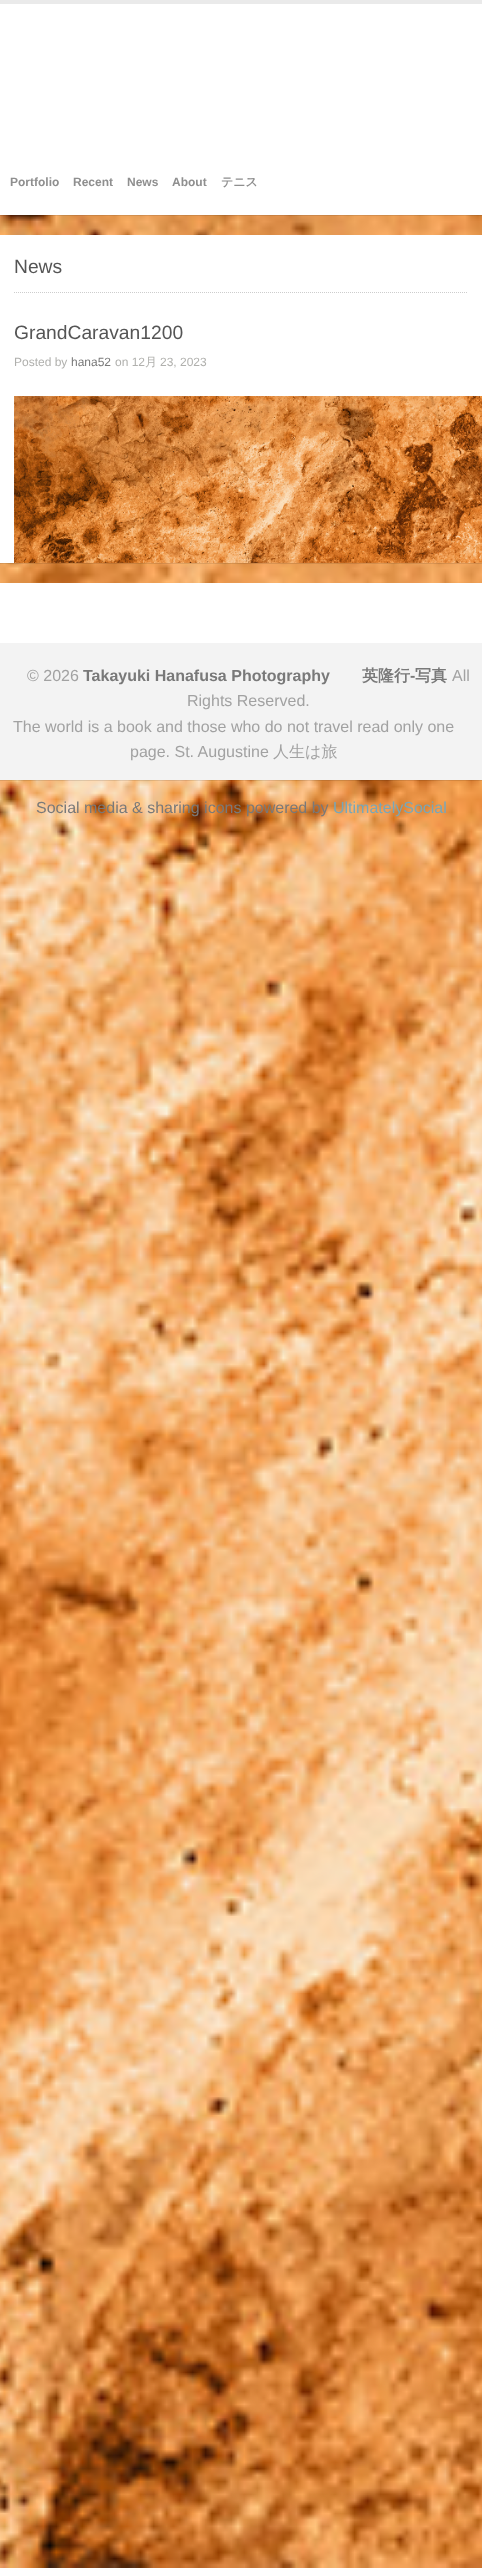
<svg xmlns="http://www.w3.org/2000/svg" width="482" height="2568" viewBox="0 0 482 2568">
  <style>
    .t1 { font: bold 12px Liberation Sans; fill: #8f8f8f; }
    .t2 { font: bold 12px WenQuanYi Zen Hei; fill: #8f8f8f; }
    .t3 { font: 19.25px Liberation Sans; fill: #555; }
    .t4 { font: 12px Liberation Sans; fill: #b0b0ad; }
    .t5 { font: 12px Liberation Sans; fill: #797979; }
    .t6 { font: 500 12px WenQuanYi Zen Hei; fill: #b0b0ad; }
    .t7 { font: 16px Liberation Sans; fill: #a2a2a2; }
    .t8 { font: bold 16px Liberation Sans; fill: #797979; }
    .t9 { font: bold 16px WenQuanYi Zen Hei; fill: #797979; }
    .t10 { font: 500 16px WenQuanYi Zen Hei; fill: #a2a2a2; }
    .t11 { font: 16px Liberation Sans; fill: #797979; }
    .t12 { font: 16px Liberation Sans; fill: #77a7b9; }
  </style>
  <rect width="100%" height="100%" fill="#fff"/>
  <image x="0" y="215" width="482" height="2353" href="images/3.png"/>
  <rect x="0" y="1" width="482" height="215" fill="#0000001a" filter="blur(0.5px)"/>
  <rect x="0" y="4" width="482" height="211" fill="#fff"/>
  <rect x="0" y="0" width="482" height="4" fill="#eaeaea"/>
  <text x="10" y="186" class="t1">Portfolio</text>
  <text x="73" y="186" class="t1">Recent</text>
  <text x="127" y="186" class="t1">News</text>
  <text x="172" y="186" class="t1">About</text>
  <text x="221" y="186" class="t2">テニス</text>
  <rect x="0" y="236" width="482" height="328" fill="#0000001a" filter="blur(0.5px)"/>
  <rect x="0" y="235" width="482" height="328" fill="#fff"/>
  <image x="14" y="292" width="453" height="1" href="images/1.png"/>
  <text x="14" y="273" class="t3">News</text>
  <text x="14" y="339" class="t3">GrandCaravan1200</text>
  <text x="14" y="366" class="t4">Posted by</text>
  <text x="71" y="366" class="t5">hana52</text>
  <text x="115" y="366" class="t4">on 12</text>
  <text x="145" y="366" class="t6">月</text>
  <text x="160" y="366" class="t4">23, 2023</text>
  <image x="14" y="396" width="468" height="167" href="images/2.png"/>
  <rect x="0" y="584" width="482" height="197" fill="#0000001a" filter="blur(0.5px)"/>
  <rect x="0" y="583" width="482" height="60" fill="#fff"/>
  <rect x="0" y="643" width="482" height="137" fill="#f3f3f3"/>
  <text x="27" y="681" class="t7">© 2026</text>
  <text x="83" y="681" class="t8">Takayuki Hanafusa Photography</text>
  <text x="362" y="681" class="t9">英隆行</text>
  <text x="410" y="681" class="t8">-</text>
  <text x="415" y="681" class="t9">写真</text>
  <text x="452" y="681" class="t7">All</text>
  <text x="187" y="706" class="t7">Rights Reserved.</text>
  <text x="13" y="732" class="t7">The world is a book and those who do not travel read only one</text>
  <text x="130" y="757" class="t7">page. St. Augustine</text>
  <text x="273" y="757" class="t10">人生は旅</text>
  <text x="36" y="813" class="t11">Social media &amp; sharing icons powered by</text>
  <text x="333" y="813" class="t12">UltimatelySocial</text>
</svg>
